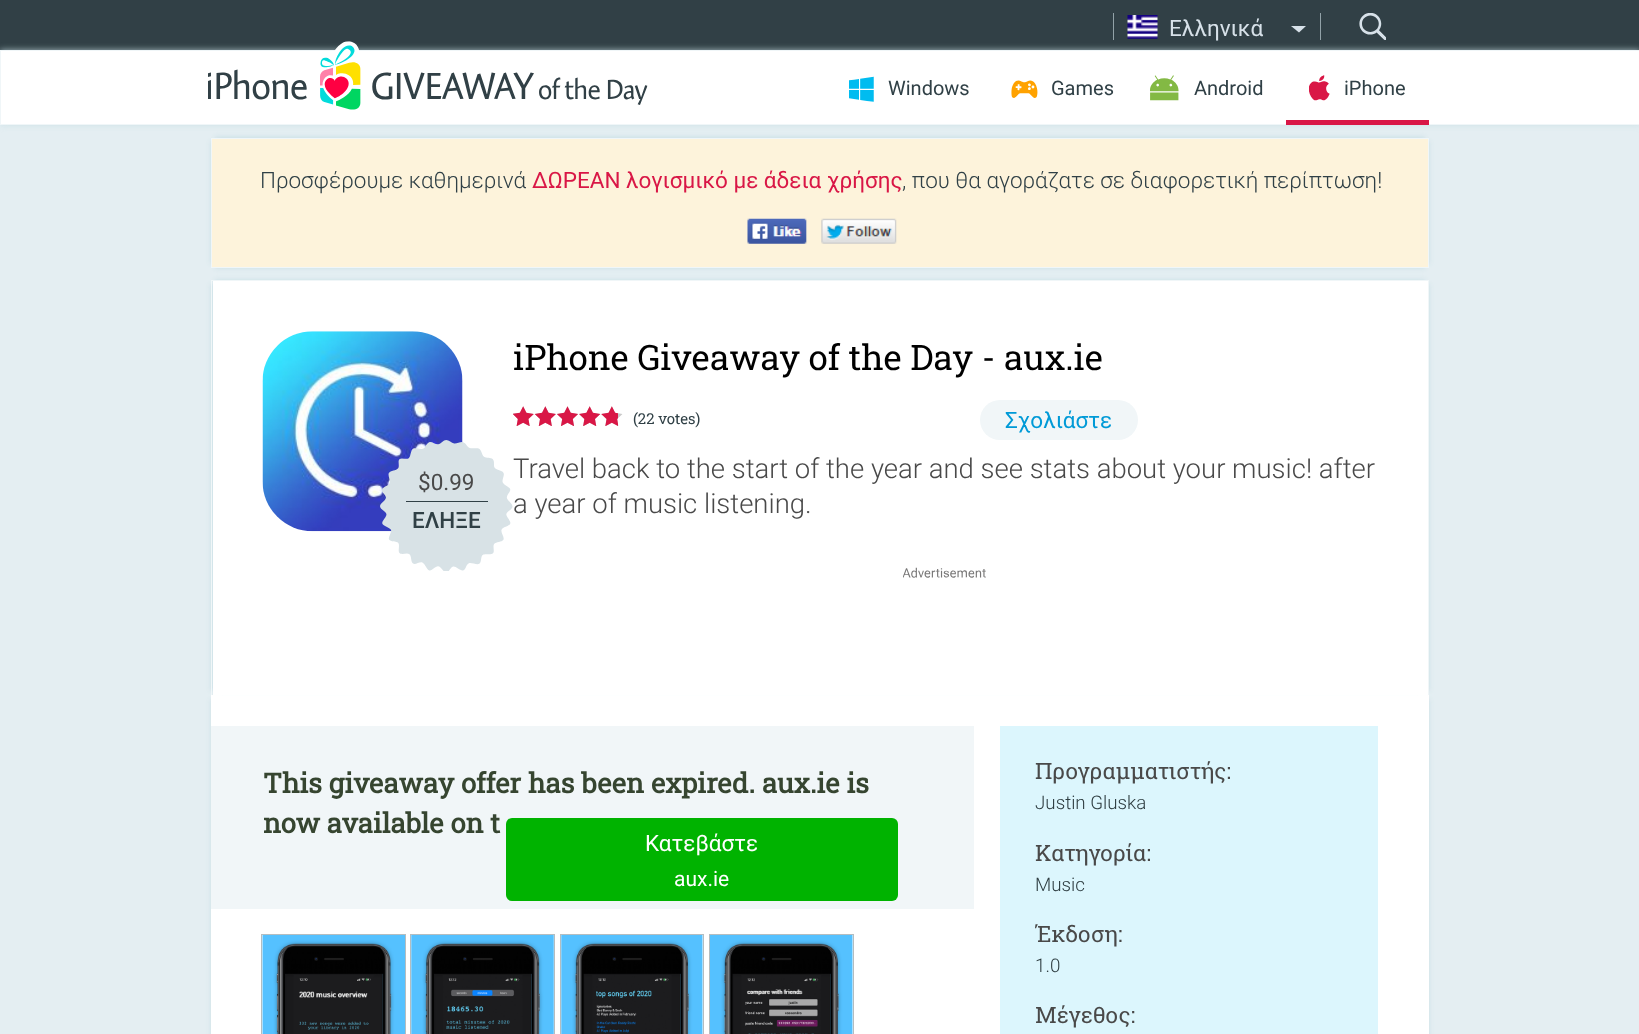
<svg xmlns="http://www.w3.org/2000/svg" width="1639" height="1034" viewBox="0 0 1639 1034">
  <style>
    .t1 { font: 22.5px Roboto; fill: #d7e1e9; }
    .t2 { font: 20px Roboto; fill: #304046; }
    .t3 { font: 300 22.5px Roboto; fill: #304046; }
    .t4 { font: 22.5px Roboto; fill: #d91746; }
    .t5 { font: 22.5px Roboto; fill: #494949; }
    .t6 { font: 500 22.5px Roboto; fill: #304046; }
    .t7 { font: 35px Roboto Slab; fill: #000; }
    .t8 { font: 15px Roboto Slab; fill: #304046; }
    .t9 { font: 22.5px Roboto; fill: #009ad7; }
    .t10 { font: 300 27.5px Roboto; fill: #494949; }
    .t11 { font: bold 27.5px Roboto Slab; fill: #364530; }
    .t12 { font: 22.5px Roboto; fill: #fff; }
    .t13 { font: 21px Roboto; fill: #fff; }
    .t14 { font: 22.5px Roboto Slab; fill: #494949; }
    .t15 { font: 300 18.75px Roboto; fill: #2d3c40; }
  </style>
  <rect width="100%" height="100%" fill="#e4eef2"/>
  <rect x="0" y="0" width="1639" height="50" fill="#314046"/>
  <rect x="1113" y="13" width="1" height="27" fill="#92a2a8"/>
  <image x="1127" y="15" width="31" height="24" href="images/1.png"/>
  <rect x="0" y="50" width="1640" height="75" fill="#c7dee4cc" filter="blur(3px)"/>
  <text x="1169" y="36" class="t1">Ελληνικά</text>
  <path d="M1291 26H1306L1299 32.5Z" fill="#d7e1e9"/>
  <rect x="1320" y="13" width="1" height="27" fill="#92a2a8"/>
  <image x="1359" y="13" width="27" height="27" href="images/2.png"/>
  <rect x="0.5" y="50.5" width="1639" height="74" fill="#fff" stroke="#f0f6f8"/>
  <image x="208" y="41" width="440" height="69" href="images/3.png"/>
  <image x="849" y="76" width="25" height="26" href="images/4.png"/>
  <text x="888" y="95" class="t2">Windows</text>
  <image x="1011" y="80" width="27" height="18" href="images/5.png"/>
  <text x="1051" y="95" class="t2">Games</text>
  <image x="1150" y="75" width="29" height="26" href="images/6.png"/>
  <text x="1194" y="95" class="t2">Android</text>
  <image x="1309" y="75" width="21" height="26" href="images/7.png"/>
  <text x="1344" y="95" class="t2">iPhone</text>
  <rect x="1286" y="120" width="143" height="5" fill="#d91746"/>
  <rect x="210" y="141" width="1210" height="123" fill="#c7dee499" filter="blur(2px)"/>
  <rect x="215" y="146" width="1210" height="123" fill="#c7dee499" filter="blur(2px)"/>
  <rect x="220" y="141" width="1210" height="123" fill="#c7dee499" filter="blur(2px)"/>
  <rect x="215" y="136" width="1210" height="123" fill="#c7dee499" filter="blur(2px)"/>
  <rect x="211.5" y="138.5" width="1217" height="129" fill="#fdf3db" stroke="#f0f6f8"/>
  <text x="260" y="188" class="t3">Προσφέρουμε καθημερινά</text>
  <text x="532" y="188" class="t4">ΔΩΡΕΑΝ λογισμικό με άδεια χρήσης</text>
  <text x="902" y="188" class="t3">, που θα αγοράζατε σε διαφορετική περίπτωση!</text>
  <image x="747" y="218" width="60" height="26" href="images/8.png"/>
  <image x="821" y="218" width="76" height="26" href="images/9.png"/>
  <rect x="210" y="699" width="1210" height="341" fill="#c7dee499" filter="blur(2px)"/>
  <rect x="220" y="699" width="1210" height="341" fill="#c7dee499" filter="blur(2px)"/>
  <rect x="211" y="695" width="1218" height="339" fill="#fff"/>
  <rect x="210" y="284" width="1210" height="407" fill="#c7dee499" filter="blur(2px)"/>
  <rect x="220" y="284" width="1210" height="407" fill="#c7dee499" filter="blur(2px)"/>
  <rect x="215" y="279" width="1210" height="407" fill="#c7dee499" filter="blur(2px)"/>
  <rect x="213" y="281" width="1215" height="414" fill="#fff"/>
  <rect x="211" y="280" width="1218" height="1" fill="#f0f6f8"/>
  <rect x="1428" y="280" width="1" height="415" fill="#f0f6f8"/>
  <rect x="211" y="280" width="1" height="415" fill="#f0f6f8"/>
  <image x="262" y="331" width="201" height="201" href="images/10.png"/>
  <image x="380" y="440" width="133" height="131" href="images/11.png"/>
  <text x="418" y="490" class="t5">$0.99</text>
  <rect x="406" y="501" width="82" height="1" fill="#314046"/>
  <text x="412" y="528" class="t6">ΕΛΗΞΕ</text>
  <text x="513" y="370" class="t7">iPhone Giveaway of the Day - aux.ie</text>
  <image x="513" y="406" width="110" height="20" href="images/12.png"/>
  <image x="513" y="406" width="105" height="20" href="images/13.png"/>
  <text x="633" y="424" class="t8">(22 votes)</text>
  <rect x="980" y="400" width="158" height="40" rx="20" fill="#f1f6f8"/>
  <text x="1005" y="428" class="t9">Σχολιάστε</text>
  <text x="513" y="478" class="t10">Travel back to the start of the year and see stats about your music! after</text>
  <text x="513" y="513" class="t10">a year of music listening.</text>
  <image x="903" y="567" width="83" height="11" href="images/14.png"/>
  <rect x="211" y="726" width="763" height="183" fill="#f1f6f8"/>
  <text x="263" y="793" class="t11">This giveaway offer has been expired. aux.ie is</text>
  <text x="263" y="833" class="t11">now available on t</text>
  <rect x="506" y="818" width="392" height="83" rx="6" fill="#00b300"/>
  <text x="645" y="851" class="t12">Κατεβάστε</text>
  <text x="674" y="886" class="t13">aux.ie</text>
  <rect x="1000" y="726" width="378" height="308" fill="#dcf6fd"/>
  <text x="1035" y="779" class="t14">Προγραμματιστής:</text>
  <text x="1035" y="809" class="t15">Justin Gluska</text>
  <text x="1035" y="861" class="t14">Κατηγορία:</text>
  <text x="1035" y="891" class="t15">Music</text>
  <text x="1035" y="942" class="t14">Έκδοση:</text>
  <text x="1035" y="972" class="t15">1.0</text>
  <text x="1035" y="1023" class="t14">Μέγεθος:</text>
  <rect x="261.5" y="934.5" width="144" height="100" fill="none" stroke="#b4bdc0"/>
  <rect x="410.5" y="934.5" width="144" height="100" fill="none" stroke="#b4bdc0"/>
  <rect x="560.5" y="934.5" width="143" height="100" fill="none" stroke="#b4bdc0"/>
  <rect x="709.5" y="934.5" width="144" height="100" fill="none" stroke="#b4bdc0"/>
  <image x="262" y="935" width="143" height="99" href="images/15.png"/>
  <image x="411" y="935" width="143" height="99" href="images/16.png"/>
  <image x="561" y="935" width="142" height="99" href="images/17.png"/>
  <image x="710" y="935" width="143" height="99" href="images/18.png"/>
</svg>
